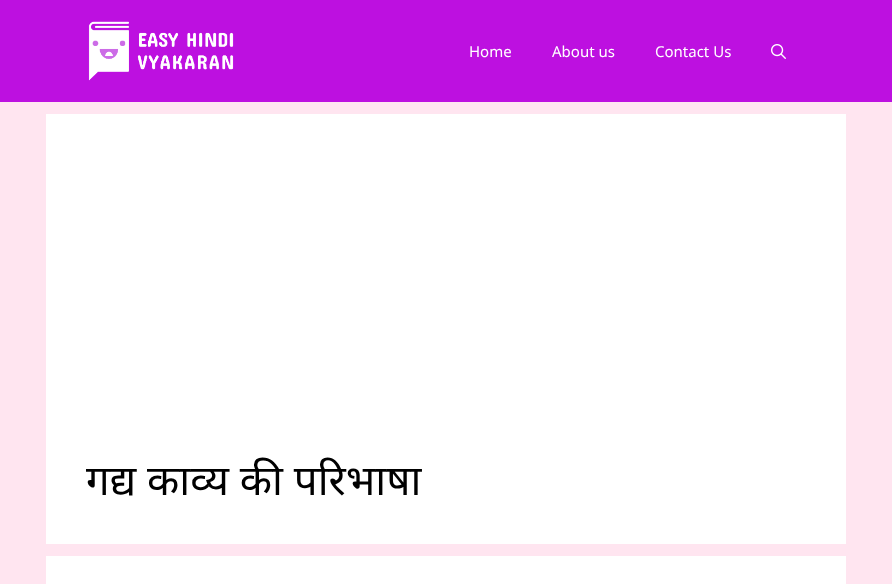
<svg xmlns="http://www.w3.org/2000/svg" width="892" height="584" viewBox="0 0 892 584">
  <style>
    .t1 { font: 15px Noto Sans; fill: #fff; }
    .t2 { font: 42px Noto Sans; fill: #000; }
  </style>
  <rect width="100%" height="100%" fill="#ffe5f0"/>
  <rect x="0" y="0" width="892" height="102" fill="#bd10e0"/>
  <image x="88" y="21" width="146" height="60" href="images/1.png"/>
  <text x="469" y="57" class="t1">Home</text>
  <text x="552" y="57" class="t1">About us</text>
  <text x="655" y="57" class="t1">Contact Us</text>
  <image x="771" y="44" width="15" height="15" href="images/2.png"/>
  <rect x="46" y="114" width="800" height="430" fill="#fff"/>
  <text x="86" y="495" class="t2">गद्य काव्य की परिभाषा</text>
  <rect x="46" y="556" width="800" height="28" fill="#fff"/>
</svg>
